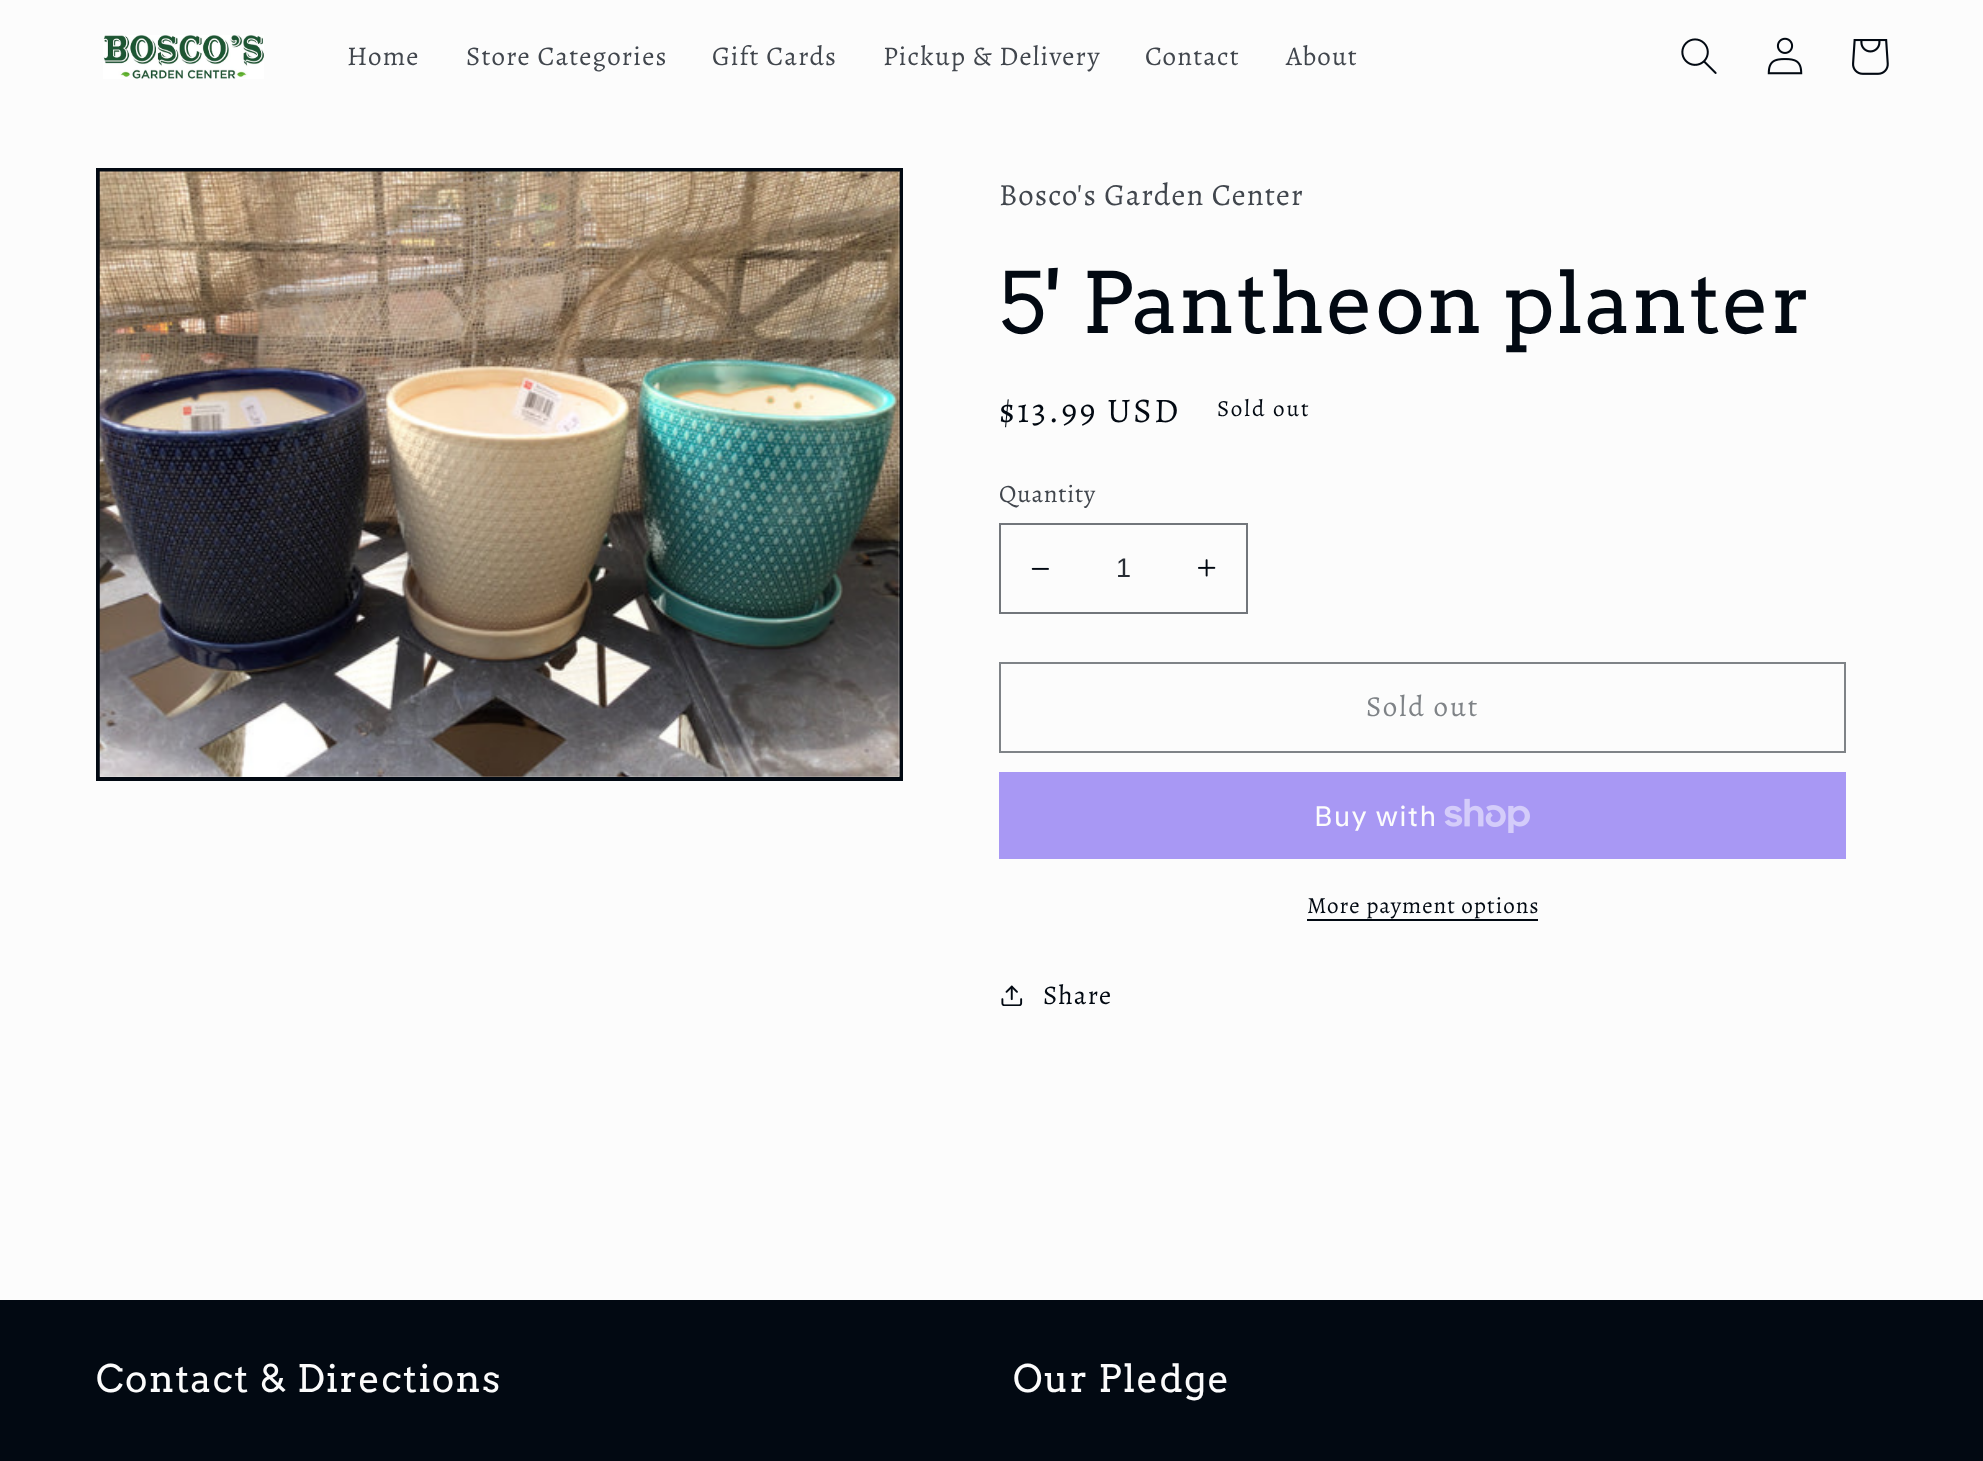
<svg xmlns="http://www.w3.org/2000/svg" width="1983" height="1461" viewBox="0 0 1983 1461">
  <style>
    .t1 { font: 27px Alegreya; letter-spacing: 1.2px; fill: #41464d; }
    .t2 { font: 30.75px Alegreya; letter-spacing: 1.2px; fill: #41464d; }
    .t3 { font: 84px Arvo; letter-spacing: 1.25px; fill: #020912; }
    .t4 { font: 34.5px Alegreya; letter-spacing: 2.5px; fill: #020912; }
    .t5 { font: 23.1px Alegreya; letter-spacing: 2px; fill: #020912; }
    .t6 { font: 25px Alegreya; letter-spacing: 0.75px; fill: #41464d; }
    .t7 { font: 27px Liberation Sans; fill: #282d35; }
    .t8 { font: 29px Alegreya; letter-spacing: 2px; fill: #7f8387; }
    .t9 { font: 28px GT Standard; letter-spacing: 1.2px; fill: #fcfcfc; }
    .t10 { font: 23.1px Alegreya; letter-spacing: 1px; fill: #020912; }
    .t11 { font: 27px Alegreya; letter-spacing: 1.2px; fill: #020912; }
    .t12 { font: 37.75px Arvo; letter-spacing: 1.25px; fill: #fcfcfc; }
  </style>
  <rect width="100%" height="100%" fill="#fcfcfc"/>
  <image x="103" y="35" width="161" height="44" href="images/1.png"/>
  <text x="347" y="65" class="t1">Home</text>
  <text x="466" y="65" class="t1">Store Categories</text>
  <text x="712" y="65" class="t1">Gift Cards</text>
  <text x="883" y="65" class="t1">Pickup &amp; Delivery</text>
  <text x="1145" y="65" class="t1">Contact</text>
  <text x="1286" y="65" class="t1">About</text>
  <image x="1681" y="38" width="36" height="36" href="images/2.png"/>
  <image x="1767" y="37" width="36" height="38" href="images/3.png"/>
  <image x="1852" y="39" width="37" height="36" href="images/4.png"/>
  <rect x="98" y="170" width="803" height="609" fill="none" stroke="#020912" stroke-width="4"/>
  <image x="99" y="171" width="801" height="606" href="images/5.png"/>
  <text x="999" y="205" class="t2">Bosco's Garden Center</text>
  <text x="999" y="333" class="t3">5' Pantheon planter</text>
  <text x="999" y="422" class="t4">$13.99 USD</text>
  <text x="1217" y="416" class="t5">Sold out</text>
  <text x="999" y="502" class="t6">Quantity</text>
  <image x="1031" y="567" width="18" height="3" href="images/6.png"/>
  <image x="1198" y="559" width="18" height="18" href="images/7.png"/>
  <rect x="1000" y="524" width="247" height="89" fill="none" stroke="#72767b" stroke-width="2"/>
  <text x="1116" y="577" class="t7">1</text>
  <rect x="1000" y="663" width="845" height="89" fill="none" stroke="#7f8387" stroke-width="2"/>
  <text x="1366" y="716" class="t8">Sold out</text>
  <rect x="999" y="772" width="847" height="87" fill="#a898f4"/>
  <text x="1314" y="826" class="t9">Buy with</text>
  <image x="1444" y="798" width="86" height="35" href="images/8.png"/>
  <text x="1307" y="913" class="t10">More payment options</text>
  <rect x="1307" y="919" width="231" height="2" fill="#020912"/>
  <image x="1001" y="985" width="22" height="21" href="images/9.png"/>
  <text x="1043" y="1004" class="t11">Share</text>
  <rect x="0" y="1300" width="1983" height="161" fill="#020912"/>
  <text x="96" y="1392" class="t12">Contact &amp; Directions</text>
  <text x="1013" y="1392" class="t12">Our Pledge</text>
</svg>
